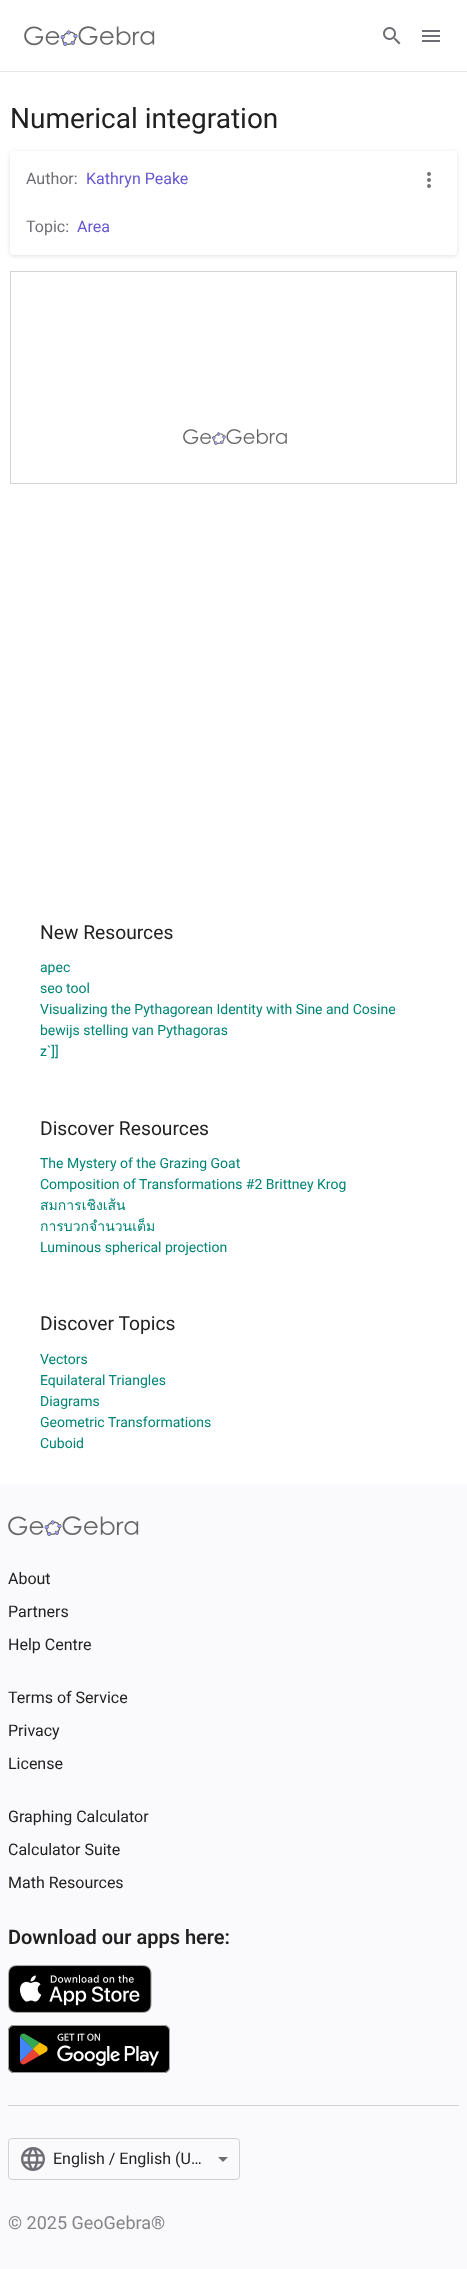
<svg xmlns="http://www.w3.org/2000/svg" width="467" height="2269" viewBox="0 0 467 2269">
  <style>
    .t1 { font: 28px Roboto; fill: #212121; }
    .t2 { font: 16px Roboto; fill: #6e6d73; }
    .t3 { font: 16px Roboto; fill: #6557d2; }
    .t4 { font: 19.25px Roboto; fill: #212121; }
    .t5 { font: 14px Roboto; fill: #008475; }
    .t6 { font: 14px Loma; fill: #008475; }
    .t7 { font: 16px Roboto; fill: #212121; }
    .t8 { font: 600 20px Roboto; fill: #212121; }
    .t9 { font: 18px Roboto; fill: #85848a; }
  </style>
  <rect width="100%" height="100%" fill="#fff"/>
  <rect x="0" y="71" width="467" height="1" fill="#e6e6eb"/>
  <image x="24" y="26" width="131" height="20" href="images/1.png"/>
  <image x="383" y="27" width="18" height="18" href="images/2.png"/>
  <image x="422" y="30" width="18" height="12" href="images/3.png"/>
  <text x="10" y="128" class="t1">Numerical integration</text>
  <rect x="10" y="152" width="447" height="104" rx="4" fill="#1c1c1f24" filter="blur(2px)"/>
  <rect x="10" y="151" width="447" height="104" rx="4" fill="#fff"/>
  <text x="26" y="184" class="t2">Author:</text>
  <text x="86" y="184" class="t3">Kathryn Peake</text>
  <text x="26" y="232" class="t2">Topic:</text>
  <text x="77" y="232" class="t3">Area</text>
  <image x="427" y="172" width="4" height="16" href="images/4.png"/>
  <image x="183" y="429" width="104" height="16" href="images/5.png"/>
  <rect x="10.5" y="271.5" width="446" height="212" fill="none" stroke="#d3d3d3"/>
  <text x="40" y="939" class="t4">New Resources</text>
  <text x="40" y="972" class="t5">apec</text>
  <text x="40" y="993" class="t5">seo tool</text>
  <text x="40" y="1014" class="t5">Visualizing the Pythagorean Identity with Sine and Cosine</text>
  <text x="40" y="1035" class="t5">bewijs stelling van Pythagoras</text>
  <text x="40" y="1056" class="t5">z`]]</text>
  <text x="40" y="1135" class="t4">Discover Resources</text>
  <text x="40" y="1168" class="t5">The Mystery of the Grazing Goat</text>
  <text x="40" y="1189" class="t5">Composition of Transformations #2 Brittney Krog</text>
  <text x="40" y="1210" class="t6">สมการเชิงเส้น</text>
  <text x="40" y="1231" class="t6">การบวกจำนวนเต็ม</text>
  <text x="40" y="1252" class="t5">Luminous spherical projection</text>
  <text x="40" y="1330" class="t4">Discover Topics</text>
  <text x="40" y="1364" class="t5">Vectors</text>
  <text x="40" y="1385" class="t5">Equilateral Triangles</text>
  <text x="40" y="1406" class="t5">Diagrams</text>
  <text x="40" y="1427" class="t5">Geometric Transformations</text>
  <text x="40" y="1448" class="t5">Cuboid</text>
  <rect x="0" y="1484" width="467" height="785" fill="#fafafc"/>
  <image x="8" y="1516" width="131" height="20" href="images/6.png"/>
  <text x="8" y="1584" class="t7">About</text>
  <text x="8" y="1617" class="t7">Partners</text>
  <text x="8" y="1650" class="t7">Help Centre</text>
  <text x="8" y="1703" class="t7">Terms of Service</text>
  <text x="8" y="1736" class="t7">Privacy</text>
  <text x="8" y="1769" class="t7">License</text>
  <text x="8" y="1822" class="t7">Graphing Calculator</text>
  <text x="8" y="1855" class="t7">Calculator Suite</text>
  <text x="8" y="1888" class="t7">Math Resources</text>
  <text x="8" y="1944" class="t8">Download our apps here:</text>
  <image x="8" y="1965" width="144" height="48" href="images/7.png"/>
  <image x="8" y="2025" width="162" height="48" href="images/8.png"/>
  <rect x="8" y="2105" width="451" height="1" fill="#d1d0d6"/>
  <rect x="8.5" y="2138.5" width="231" height="41" rx="3.5" fill="none" stroke="#d1d0d6"/>
  <image x="21" y="2147" width="24" height="24" href="images/9.png"/>
  <text x="53" y="2164" class="t7">English / English (U…</text>
  <path d="M218 2157L223 2162L228 2157Z" fill="#6e6d73"/>
  <text x="8" y="2229" class="t9">© 2025 GeoGebra®</text>
</svg>
